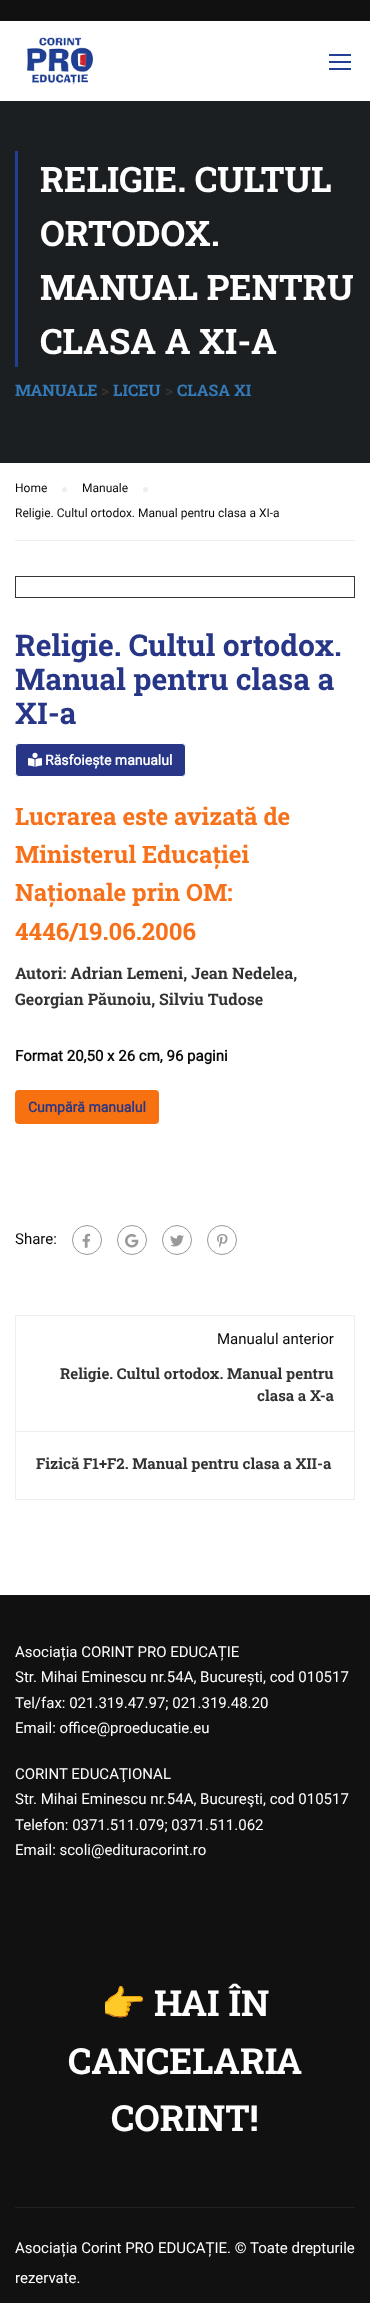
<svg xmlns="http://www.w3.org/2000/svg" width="370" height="2303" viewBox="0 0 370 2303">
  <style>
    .t1 { font: bold 35px Roboto Slab; fill: #fff; }
    .t2 { font: bold 16px Roboto Slab; fill: #337ab7; }
    .t3 { font: bold 16px Roboto Slab; fill: #333; }
    .t4 { font: 12px Roboto; fill: #0a0a0a; }
    .t5 { font: bold 30px Roboto Slab; fill: #273686; }
    .t6 { font: bold 14px Roboto; fill: #fff; }
    .t7 { font: bold 24px Roboto Slab; fill: #f7711a; }
    .t8 { font: bold 15px Roboto; fill: #0a0a0a; }
    .t9 { font: bold 14px Roboto; fill: #273686; }
    .t10 { font: 15px Roboto; fill: #0a0a0a; }
    .t11 { font: bold 15px Roboto Slab; fill: #333; }
    .t12 { font: 15px Roboto; fill: #fff; }
    .t13 { font: bold 36px Noto Color Emoji; fill: #333; }
    .t14 { font: bold 36px Roboto Slab; fill: #fff; }
  </style>
  <rect width="100%" height="100%" fill="#fff"/>
  <rect x="0" y="0" width="370" height="21" fill="#111"/>
  <image x="27" y="37" width="66" height="48" href="images/1.png"/>
  <rect x="329" y="54" width="22" height="2" fill="#214093"/>
  <rect x="329" y="61" width="22" height="2" fill="#214093"/>
  <rect x="329" y="68" width="22" height="2" fill="#214093"/>
  <rect x="0" y="101" width="370" height="362" fill="#1c1f22"/>
  <rect x="15" y="151" width="3" height="216" fill="#214093"/>
  <text x="40" y="192" class="t1">RELIGIE. CULTUL</text>
  <text x="40" y="246" class="t1">ORTODOX.</text>
  <text x="40" y="300" class="t1">MANUAL PENTRU</text>
  <text x="40" y="354" class="t1">CLASA A XI-A</text>
  <text x="15" y="396" class="t2">MANUALE</text>
  <text x="101" y="396" class="t3">&gt;</text>
  <text x="113" y="396" class="t2">LICEU</text>
  <text x="165" y="396" class="t3">&gt;</text>
  <text x="177" y="396" class="t2">CLASA XI</text>
  <rect x="15" y="540" width="340" height="1" fill="#eee"/>
  <text x="15" y="492" class="t4">Home</text>
  <circle cx="64.5" cy="489.5" r="2.5" fill="#eee"/>
  <text x="82" y="492" class="t4">Manuale</text>
  <circle cx="145.5" cy="489.5" r="2.5" fill="#eee"/>
  <text x="15" y="517" class="t4">Religie. Cultul ortodox. Manual pentru clasa a XI-a</text>
  <rect x="15.5" y="576.5" width="339" height="21" fill="none" stroke="#363636"/>
  <text x="15" y="656" class="t5">Religie. Cultul ortodox.</text>
  <text x="15" y="690" class="t5">Manual pentru clasa a</text>
  <text x="15" y="724" class="t5">XI-a</text>
  <rect x="15.5" y="743.5" width="170" height="33" rx="3.5" fill="#273686" stroke="#fff"/>
  <image x="28" y="752" width="14" height="15" href="images/2.png"/>
  <text x="45" y="765" class="t6">Răsfoiește manualul</text>
  <text x="15" y="825" class="t7">Lucrarea este avizată de</text>
  <text x="15" y="863" class="t7">Ministerul Educației</text>
  <text x="15" y="901" class="t7">Naționale prin OM:</text>
  <text x="15" y="940" class="t7">4446/19.06.2006</text>
  <text x="15" y="979" class="t3">Autori: Adrian Lemeni, Jean Nedelea,</text>
  <text x="15" y="1005" class="t3">Georgian Păunoiu, Silviu Tudose</text>
  <text x="15" y="1061" class="t8">Format 20,50 x 26 cm, 96 pagini</text>
  <rect x="15" y="1090" width="144" height="34" rx="4" fill="#f77110"/>
  <text x="28" y="1112" class="t9">Cumpără manualul</text>
  <text x="15" y="1244" class="t10">Share:</text>
  <circle cx="87" cy="1240" r="14.5" fill="none" stroke="#999"/>
  <image x="82" y="1233" width="9" height="15" href="images/3.png"/>
  <circle cx="132" cy="1240" r="14.5" fill="none" stroke="#999"/>
  <image x="125" y="1234" width="14" height="14" href="images/4.png"/>
  <circle cx="177" cy="1240" r="14.5" fill="none" stroke="#999"/>
  <image x="170" y="1235" width="14" height="12" href="images/5.png"/>
  <circle cx="222" cy="1240" r="14.5" fill="none" stroke="#999"/>
  <image x="217" y="1233" width="11" height="15" href="images/6.png"/>
  <rect x="15.5" y="1315.5" width="339" height="184" fill="none" stroke="#eee"/>
  <rect x="16" y="1431" width="338" height="1" fill="#eee"/>
  <text x="217" y="1344" class="t10">Manualul anterior</text>
  <text x="60" y="1379" class="t11">Religie. Cultul ortodox. Manual pentru</text>
  <text x="257" y="1401" class="t11">clasa a X-a</text>
  <text x="36" y="1469" class="t11">Fizică F1+F2. Manual pentru clasa a XII-a</text>
  <rect x="0" y="1595" width="370" height="708" fill="#111"/>
  <text x="15" y="1657" class="t12">Asociația CORINT PRO EDUCAȚIE</text>
  <text x="15" y="1682" class="t12">Str. Mihai Eminescu nr.54A, București, cod 010517</text>
  <text x="15" y="1708" class="t12">Tel/fax: 021.319.47.97; 021.319.48.20</text>
  <text x="15" y="1733" class="t12">Email: office@proeducatie.eu</text>
  <text x="15" y="1779" class="t12">CORINT EDUCAŢIONAL</text>
  <text x="15" y="1804" class="t12">Str. Mihai Eminescu nr.54A, Bucureşti, cod 010517</text>
  <text x="15" y="1830" class="t12">Telefon: 0371.511.079; 0371.511.062</text>
  <text x="15" y="1855" class="t12">Email: scoli@edituracorint.ro</text>
  <text x="101" y="2016" class="t13">👉</text>
  <text x="154" y="2016" class="t14">HAI ÎN</text>
  <text x="68" y="2074" class="t14">CANCELARIA</text>
  <text x="111" y="2131" class="t14">CORINT!</text>
  <rect x="15" y="2207" width="340" height="1" fill="#222"/>
  <text x="15" y="2253" class="t12">Asociația Corint PRO EDUCAȚIE. © Toate drepturile</text>
  <text x="15" y="2283" class="t12">rezervate.</text>
</svg>
